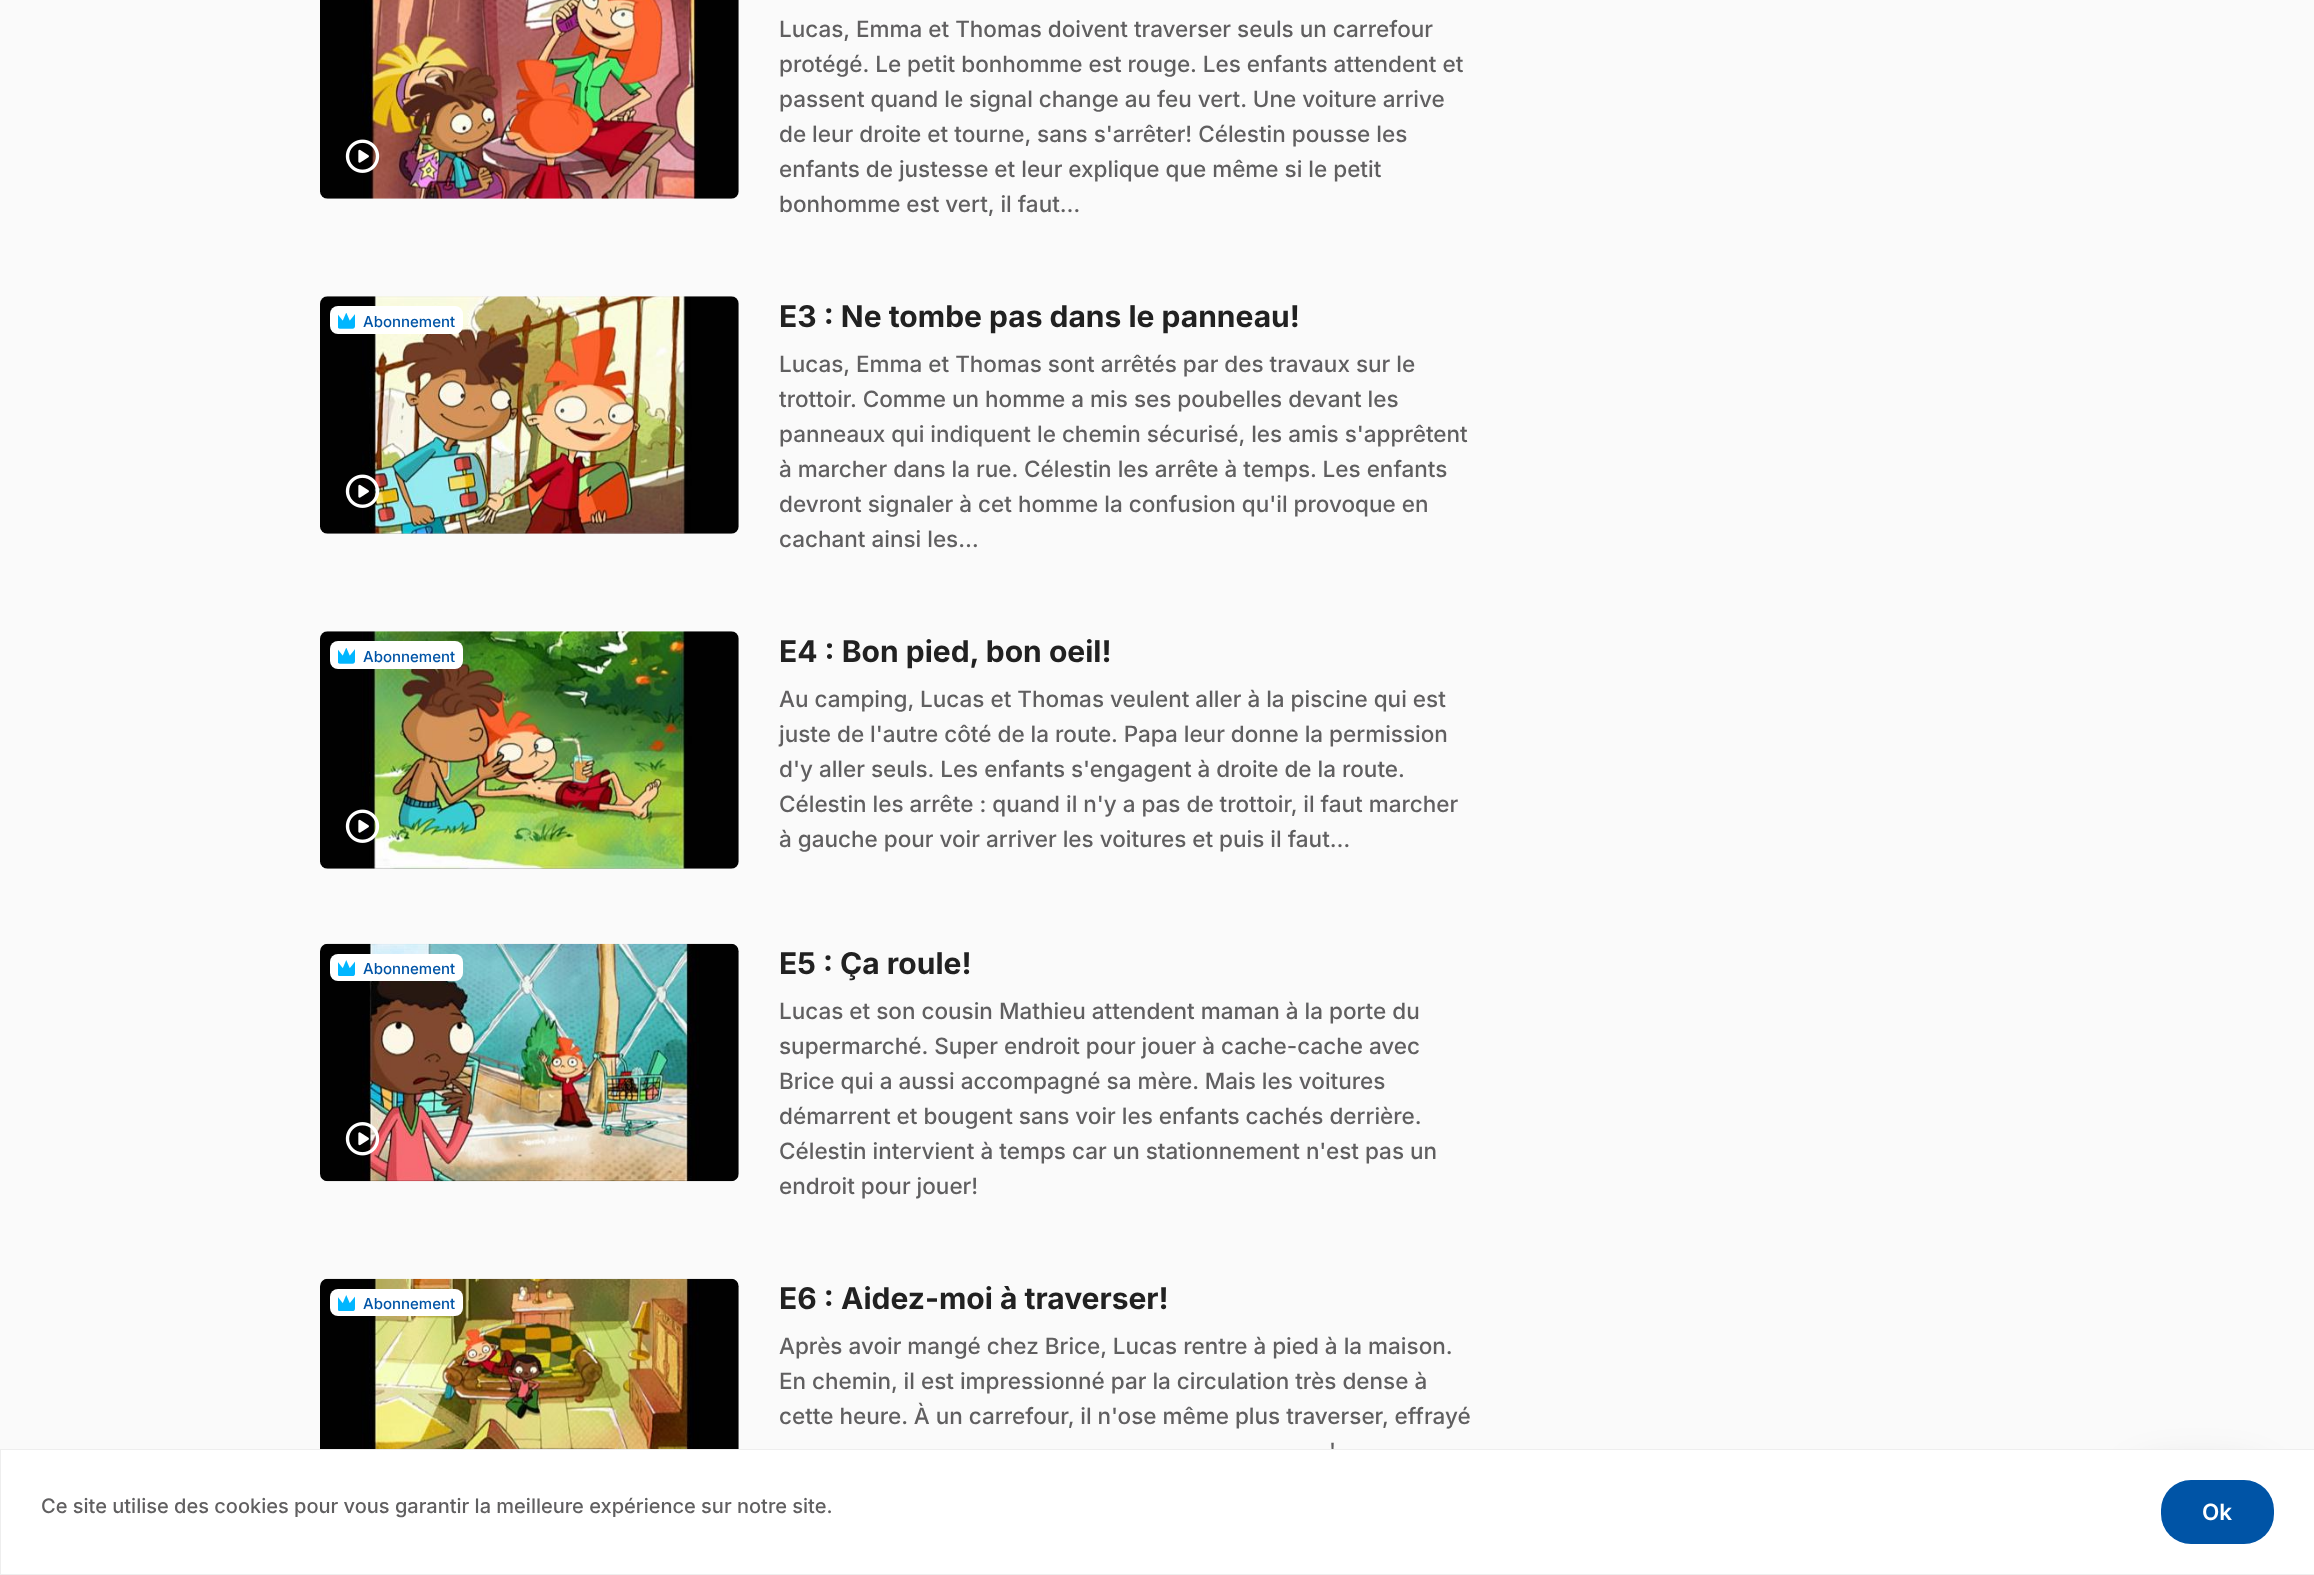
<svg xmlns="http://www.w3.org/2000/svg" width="2314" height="1575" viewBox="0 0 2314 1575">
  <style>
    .t1 { font: 500 22.5px Inter; fill: #605f60; }
    .t2 { font: 500 15px Inter; fill: #0054a6; }
    .t3 { font: bold 30px Inter; fill: #212121; }
    .t4 { font: 500 20px Inter; fill: #605f60; }
    .t5 { font: 600 22.5px Inter; fill: #fff; }
  </style>
  <rect width="100%" height="100%" fill="#fafafa"/>
  <image x="320" y="0" width="419" height="199" href="images/1.png"/>
  <image x="345" y="139" width="35" height="34" href="images/2.png"/>
  <text x="779" y="37" class="t1">Lucas, Emma et Thomas doivent traverser seuls un carrefour</text>
  <text x="779" y="72" class="t1">protégé. Le petit bonhomme est rouge. Les enfants attendent et</text>
  <text x="779" y="107" class="t1">passent quand le signal change au feu vert. Une voiture arrive</text>
  <text x="779" y="142" class="t1">de leur droite et tourne, sans s'arrêter! Célestin pousse les</text>
  <text x="779" y="177" class="t1">enfants de justesse et leur explique que même si le petit</text>
  <text x="779" y="212" class="t1">bonhomme est vert, il faut…</text>
  <image x="320" y="296" width="419" height="238" href="images/3.png"/>
  <rect x="330" y="306" width="133" height="28" rx="8" fill="#fff"/>
  <image x="338" y="313" width="17" height="16" href="images/4.png"/>
  <text x="363" y="327" class="t2">Abonnement</text>
  <image x="345" y="474" width="35" height="34" href="images/5.png"/>
  <text x="779" y="327" class="t3">E3 : Ne tombe pas dans le panneau!</text>
  <text x="779" y="372" class="t1">Lucas, Emma et Thomas sont arrêtés par des travaux sur le</text>
  <text x="779" y="407" class="t1">trottoir. Comme un homme a mis ses poubelles devant les</text>
  <text x="779" y="442" class="t1">panneaux qui indiquent le chemin sécurisé, les amis s'apprêtent</text>
  <text x="779" y="477" class="t1">à marcher dans la rue. Célestin les arrête à temps. Les enfants</text>
  <text x="779" y="512" class="t1">devront signaler à cet homme la confusion qu'il provoque en</text>
  <text x="779" y="547" class="t1">cachant ainsi les…</text>
  <image x="320" y="631" width="419" height="238" href="images/6.png"/>
  <rect x="330" y="641" width="133" height="28" rx="8" fill="#fff"/>
  <image x="338" y="648" width="17" height="16" href="images/4.png"/>
  <text x="363" y="662" class="t2">Abonnement</text>
  <image x="345" y="809" width="35" height="34" href="images/7.png"/>
  <text x="779" y="662" class="t3">E4 : Bon pied, bon oeil!</text>
  <text x="779" y="707" class="t1">Au camping, Lucas et Thomas veulent aller à la piscine qui est</text>
  <text x="779" y="742" class="t1">juste de l'autre côté de la route. Papa leur donne la permission</text>
  <text x="779" y="777" class="t1">d'y aller seuls. Les enfants s'engagent à droite de la route.</text>
  <text x="779" y="812" class="t1">Célestin les arrête : quand il n'y a pas de trottoir, il faut marcher</text>
  <text x="779" y="847" class="t1">à gauche pour voir arriver les voitures et puis il faut…</text>
  <image x="320" y="943" width="419" height="239" href="images/8.png"/>
  <rect x="330" y="954" width="133" height="27" rx="8" fill="#fff"/>
  <image x="338" y="960" width="17" height="16" href="images/9.png"/>
  <text x="363" y="974" class="t2">Abonnement</text>
  <image x="345" y="1122" width="35" height="34" href="images/10.png"/>
  <text x="779" y="974" class="t3">E5 : Ça roule!</text>
  <text x="779" y="1019" class="t1">Lucas et son cousin Mathieu attendent maman à la porte du</text>
  <text x="779" y="1054" class="t1">supermarché. Super endroit pour jouer à cache-cache avec</text>
  <text x="779" y="1089" class="t1">Brice qui a aussi accompagné sa mère. Mais les voitures</text>
  <text x="779" y="1124" class="t1">démarrent et bougent sans voir les enfants cachés derrière.</text>
  <text x="779" y="1159" class="t1">Célestin intervient à temps car un stationnement n'est pas un</text>
  <text x="779" y="1194" class="t1">endroit pour jouer!</text>
  <image x="320" y="1278" width="419" height="171" href="images/11.png"/>
  <rect x="330" y="1289" width="133" height="27" rx="8" fill="#fff"/>
  <image x="338" y="1295" width="17" height="16" href="images/9.png"/>
  <text x="363" y="1309" class="t2">Abonnement</text>
  <text x="779" y="1309" class="t3">E6 : Aidez-moi à traverser!</text>
  <text x="779" y="1354" class="t1">Après avoir mangé chez Brice, Lucas rentre à pied à la maison.</text>
  <text x="779" y="1389" class="t1">En chemin, il est impressionné par la circulation très dense à</text>
  <text x="779" y="1424" class="t1">cette heure. À un carrefour, il n'ose même plus traverser, effrayé</text>
  <text x="1329" y="1459" class="t1">'</text>
  <rect x="2133" y="1476" width="132" height="65" rx="30" fill="#00000036" filter="blur(23px)"/>
  <rect x="0.5" y="1449.5" width="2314" height="125" fill="#fff" stroke="#eee"/>
  <text x="41" y="1513" class="t4">Ce site utilise des cookies pour vous garantir la meilleure expérience sur notre site.</text>
  <rect x="2161" y="1480" width="113" height="64" rx="30" fill="#0054a6"/>
  <text x="2202" y="1520" class="t5">Ok</text>
</svg>
